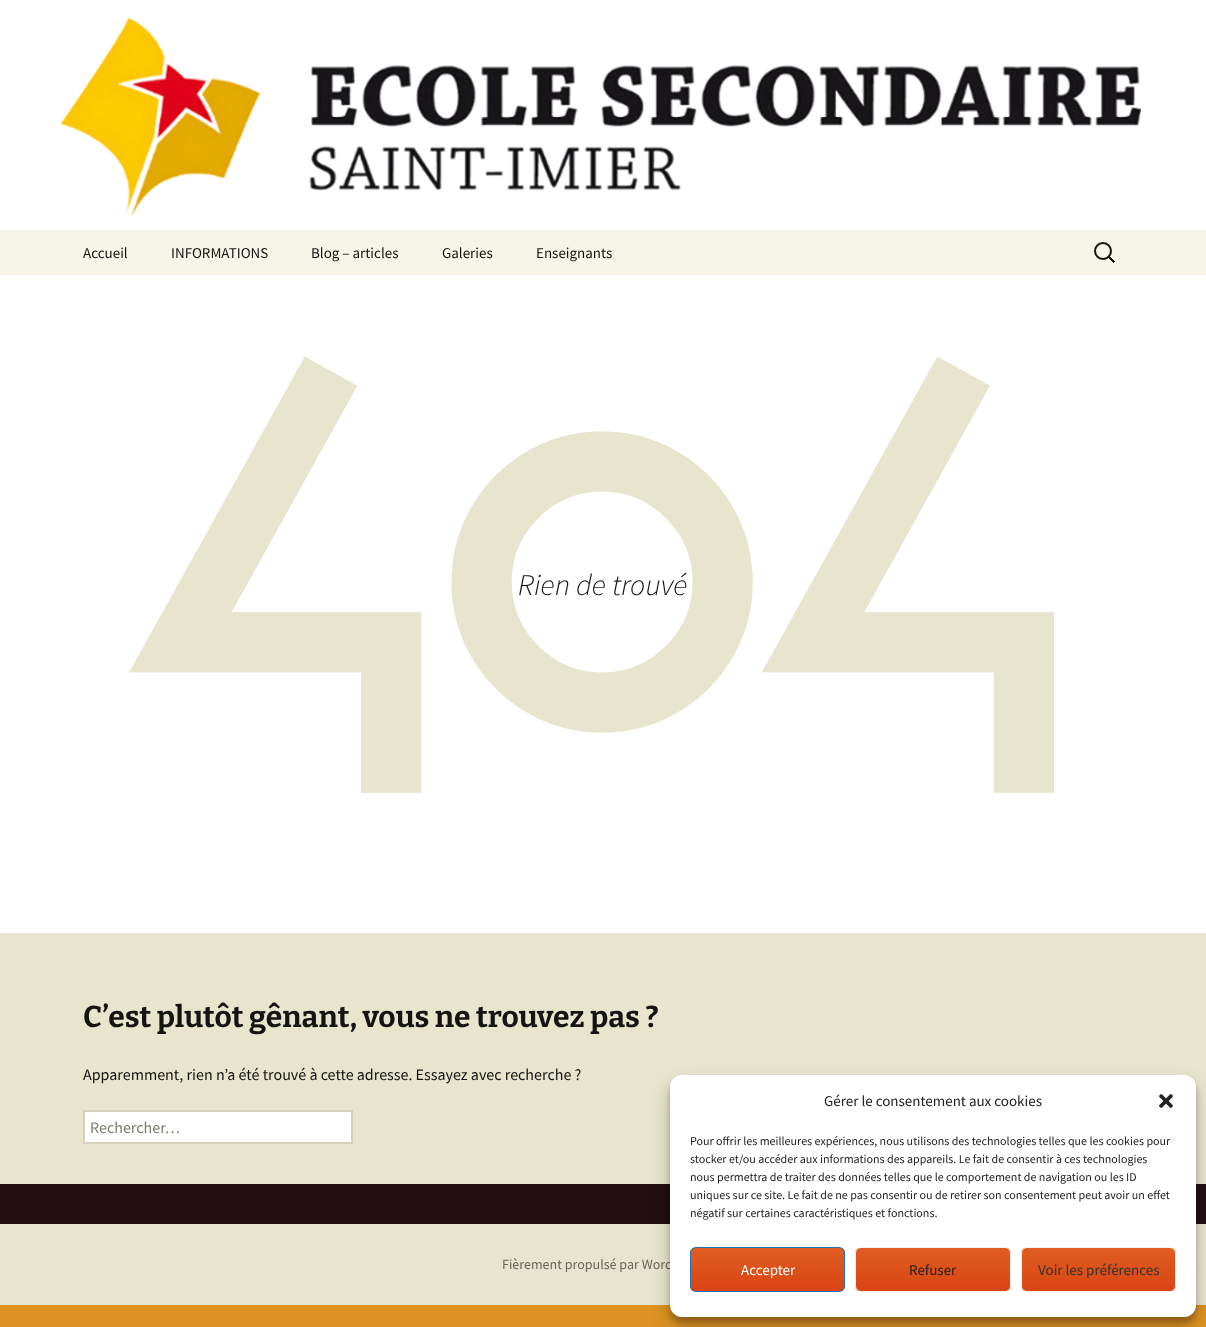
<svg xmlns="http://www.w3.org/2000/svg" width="1206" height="1327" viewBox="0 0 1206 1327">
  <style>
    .t1 { font: 15px Source Sans Pro; fill: #141412; }
    .t2 { font: italic 300 30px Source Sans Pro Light; fill: #141412; }
    .t3 { font: 100 30px Bitter; fill: #141412; }
    .t4 { font: 16px Source Sans Pro; fill: #141412; }
    .t5 { font: 16px Source Sans Pro; fill: #7d7b6d; }
    .t6 { font: 14px Source Sans Pro; fill: #686758; }
    .t7 { font: 15px Source Sans Pro; fill: #222; }
    .t8 { font: 12px Source Sans Pro; fill: #222; }
    .t9 { font: 15px Source Sans Pro; fill: #fff; }
    .t10 { font: 15px Source Sans Pro; fill: #333; }
  </style>
  <defs>
    <clipPath id="clip1"><rect x="690" y="1247" width="155" height="45" rx="6"/></clipPath>
    <linearGradient id="g1" gradientUnits="userSpaceOnUse" x1="768" y1="1248" x2="768" y2="1291"><stop offset="0" stop-color="#e05d22"/><stop offset="1" stop-color="#d94412"/></linearGradient>
    <clipPath id="clip2"><rect x="855" y="1247" width="156" height="45" rx="6"/></clipPath>
    <linearGradient id="g2" gradientUnits="userSpaceOnUse" x1="933" y1="1248" x2="933" y2="1291"><stop offset="0" stop-color="#e05d22"/><stop offset="1" stop-color="#d94412"/></linearGradient>
    <clipPath id="clip3"><rect x="1021" y="1247" width="155" height="45" rx="6"/></clipPath>
    <linearGradient id="g3" gradientUnits="userSpaceOnUse" x1="1099" y1="1248" x2="1099" y2="1291"><stop offset="0" stop-color="#e05d22"/><stop offset="1" stop-color="#d94412"/></linearGradient>
  </defs>
  <rect width="100%" height="100%" fill="#dd9323"/>
  <rect x="0" y="0" width="1206" height="933" fill="#fff"/>
  <image x="61" y="18" width="1080" height="198" href="images/1.png"/>
  <rect x="0" y="230" width="1206" height="45" fill="#f7f5e7"/>
  <text x="83" y="258" class="t1">Accueil</text>
  <text x="171" y="258" class="t1">INFORMATIONS</text>
  <text x="311" y="258" class="t1">Blog – articles</text>
  <text x="442" y="258" class="t1">Galeries</text>
  <text x="536" y="258" class="t1">Enseignants</text>
  <image x="1094" y="242" width="21" height="21" href="images/2.png"/>
  <text x="518" y="595" class="t2">Rien de trouvé</text>
  <image x="129" y="356" width="925" height="437" href="images/3.png"/>
  <rect x="0" y="933" width="1206" height="251" fill="#e8e5ce"/>
  <text x="83" y="1027" class="t3">C’est plutôt gênant, vous ne trouvez pas ?</text>
  <text x="83" y="1080" class="t4">Apparemment, rien n’a été trouvé à cette adresse. Essayez avec recherche ?</text>
  <rect x="84" y="1111" width="268" height="32" fill="#fff" stroke="#d4d0ba" stroke-width="2"/>
  <text x="90" y="1133" class="t5">Rechercher…</text>
  <rect x="0" y="1224" width="1206" height="81" fill="#e8e5ce"/>
  <rect x="0" y="1184" width="1206" height="40" fill="#220e10"/>
  <text x="502" y="1269" class="t6">Fièrement propulsé par Word</text>
  <rect x="670" y="1081" width="526" height="242" rx="12" fill="#0000003b" filter="blur(3px)"/>
  <rect x="670" y="1085" width="526" height="242" rx="12" fill="#00000030" filter="blur(10px)"/>
  <rect x="670" y="1075" width="526" height="242" rx="12" fill="#fff"/>
  <text x="824" y="1106" class="t7">Gérer le consentement aux cookies</text>
  <image x="1159" y="1094" width="14" height="14" href="images/4.png"/>
  <text x="690" y="1145" class="t8">Pour offrir les meilleures expériences, nous utilisons des technologies telles que les cookies pour</text>
  <text x="690" y="1163" class="t8">stocker et/ou accéder aux informations des appareils. Le fait de consentir à ces technologies</text>
  <text x="690" y="1181" class="t8">nous permettra de traiter des données telles que le comportement de navigation ou les ID</text>
  <text x="690" y="1199" class="t8">uniques sur ce site. Le fait de ne pas consentir ou de retirer son consentement peut avoir un effet</text>
  <text x="690" y="1217" class="t8">négatif sur certaines caractéristiques et fonctions.</text>
  <g clip-path="url(#clip1)">
    <rect x="690" y="1248" width="155" height="43" fill="url(#g1)"/>
  </g>
  <rect x="690.5" y="1247.5" width="154" height="44" rx="5.5" fill="none" stroke="#1e73be"/>
  <text x="741" y="1275" class="t9">Accepter</text>
  <g clip-path="url(#clip2)">
    <rect x="855" y="1248" width="156" height="43" fill="url(#g2)"/>
  </g>
  <rect x="855.5" y="1247.5" width="155" height="44" rx="5.5" fill="none" stroke="#f2f2f2"/>
  <text x="909" y="1275" class="t7">Refuser</text>
  <g clip-path="url(#clip3)">
    <rect x="1021" y="1248" width="155" height="43" fill="url(#g3)"/>
  </g>
  <rect x="1021.5" y="1247.5" width="154" height="44" rx="5.5" fill="none" stroke="#f2f2f2"/>
  <text x="1038" y="1275" class="t10">Voir les préférences</text>
</svg>
